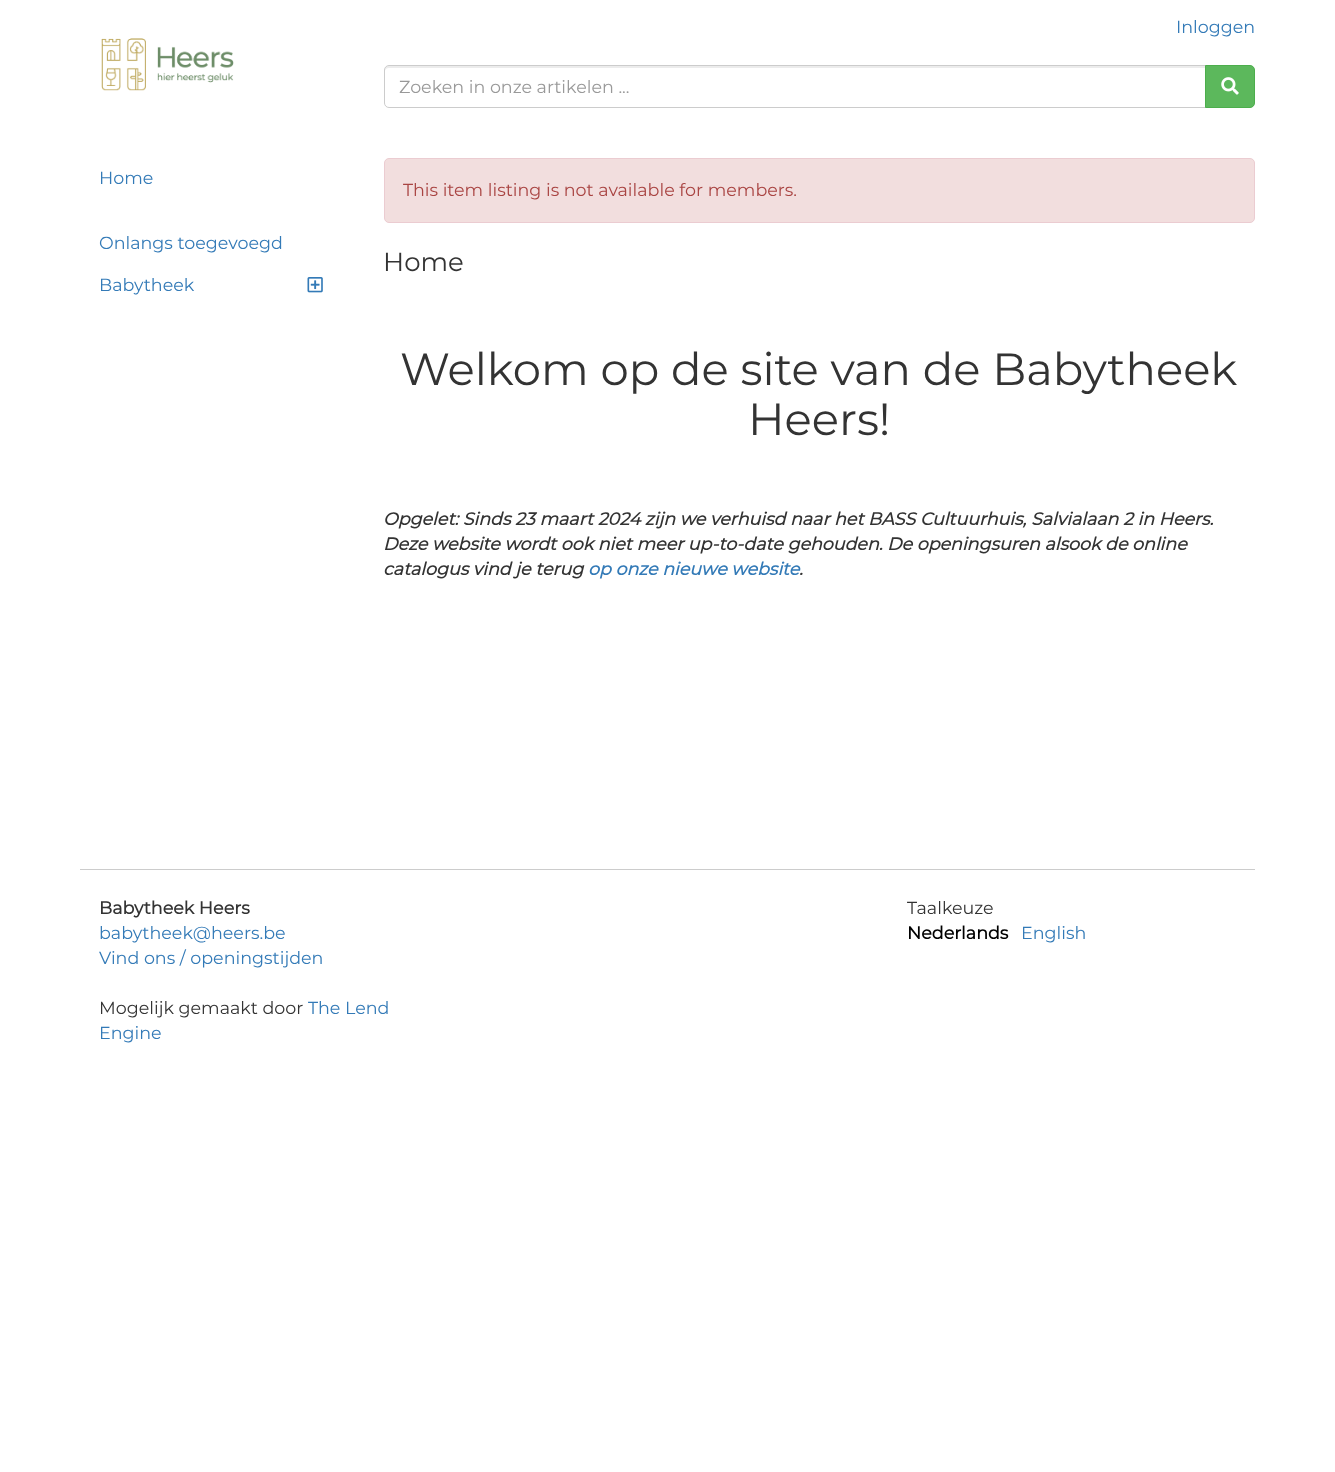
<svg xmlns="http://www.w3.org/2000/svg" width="1335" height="1472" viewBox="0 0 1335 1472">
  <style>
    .t1 { font: 100 17.5px Montserrat; fill: #337ab7; }
    .t2 { font: 100 17.5px Montserrat; fill: #999; }
    .t3 { font: 100 17.5px Montserrat; fill: #a94442; }
    .t4 { font: 100 26px Montserrat; fill: #333; }
    .t5 { font: 100 45px Montserrat; fill: #333; }
    .t6 { font: italic bold 17.5px Montserrat; fill: #333; }
    .t7 { font: italic bold 17.5px Montserrat; fill: #337ab7; }
    .t8 { font: bold 17.5px Montserrat; fill: #333; }
    .t9 { font: 100 17.5px Montserrat; fill: #333; }
    .t10 { font: bold 17.5px Montserrat; fill: #000; }
  </style>
  <rect width="100%" height="100%" fill="#fff"/>
  <text x="1176" y="33" class="t1">Inloggen</text>
  <image x="101" y="38" width="133" height="53" href="images/1.png"/>
  <path d="M389 68H1205V66H389C386 66 385 68 385 71C385 69 387 68 389 68Z" fill="#ececec"/>
  <path d="M389 65.5H1205.5V107.5H389C386.5 107.5 384.5 105.5 384.5 103V70C384.5 67.5 386.5 65.5 389 65.5Z" fill="none" stroke="#ccc"/>
  <text x="399" y="93" class="t2">Zoeken in onze artikelen ...</text>
  <path d="M1205.5 65.5H1250C1252.5 65.5 1254.5 67.5 1254.5 70V103C1254.5 105.5 1252.5 107.5 1250 107.5H1205.5Z" fill="#5cb85c" stroke="#4cae4c"/>
  <image x="1221" y="77" width="18" height="18" href="images/2.png"/>
  <text x="99" y="184" class="t1">Home</text>
  <text x="99" y="249" class="t1">Onlangs toegevoegd</text>
  <text x="99" y="291" class="t1">Babytheek</text>
  <image x="307" y="277" width="16" height="16" href="images/3.png"/>
  <rect x="384.5" y="158.5" width="870" height="64" rx="4.5" fill="#f2dede" stroke="#ebccd1"/>
  <text x="403" y="196" class="t3">This item listing is not available for members.</text>
  <text x="383" y="271" class="t4">Home</text>
  <text x="400" y="385" class="t5">Welkom op de site van de Babytheek</text>
  <text x="748" y="435" class="t5">Heers!</text>
  <text x="383" y="525" class="t6">Opgelet: Sinds 23 maart 2024 zijn we verhuisd naar het BASS Cultuurhuis, Salvialaan 2 in Heers.</text>
  <text x="383" y="550" class="t6">Deze website wordt ook niet meer up-to-date gehouden. De openingsuren alsook de online</text>
  <text x="383" y="575" class="t6">catalogus vind je terug</text>
  <text x="588" y="575" class="t7">op onze nieuwe website</text>
  <text x="799" y="575" class="t6">.</text>
  <rect x="80" y="869" width="1175" height="1" fill="#ccc"/>
  <text x="99" y="914" class="t8">Babytheek Heers</text>
  <text x="99" y="939" class="t1">babytheek@heers.be</text>
  <text x="99" y="964" class="t1">Vind ons / openingstijden</text>
  <text x="99" y="1014" class="t9">Mogelijk gemaakt door</text>
  <text x="308" y="1014" class="t1">The Lend</text>
  <text x="99" y="1039" class="t1">Engine</text>
  <text x="907" y="914" class="t9">Taalkeuze</text>
  <text x="907" y="939" class="t10">Nederlands</text>
  <text x="1021" y="939" class="t1">English</text>
</svg>
